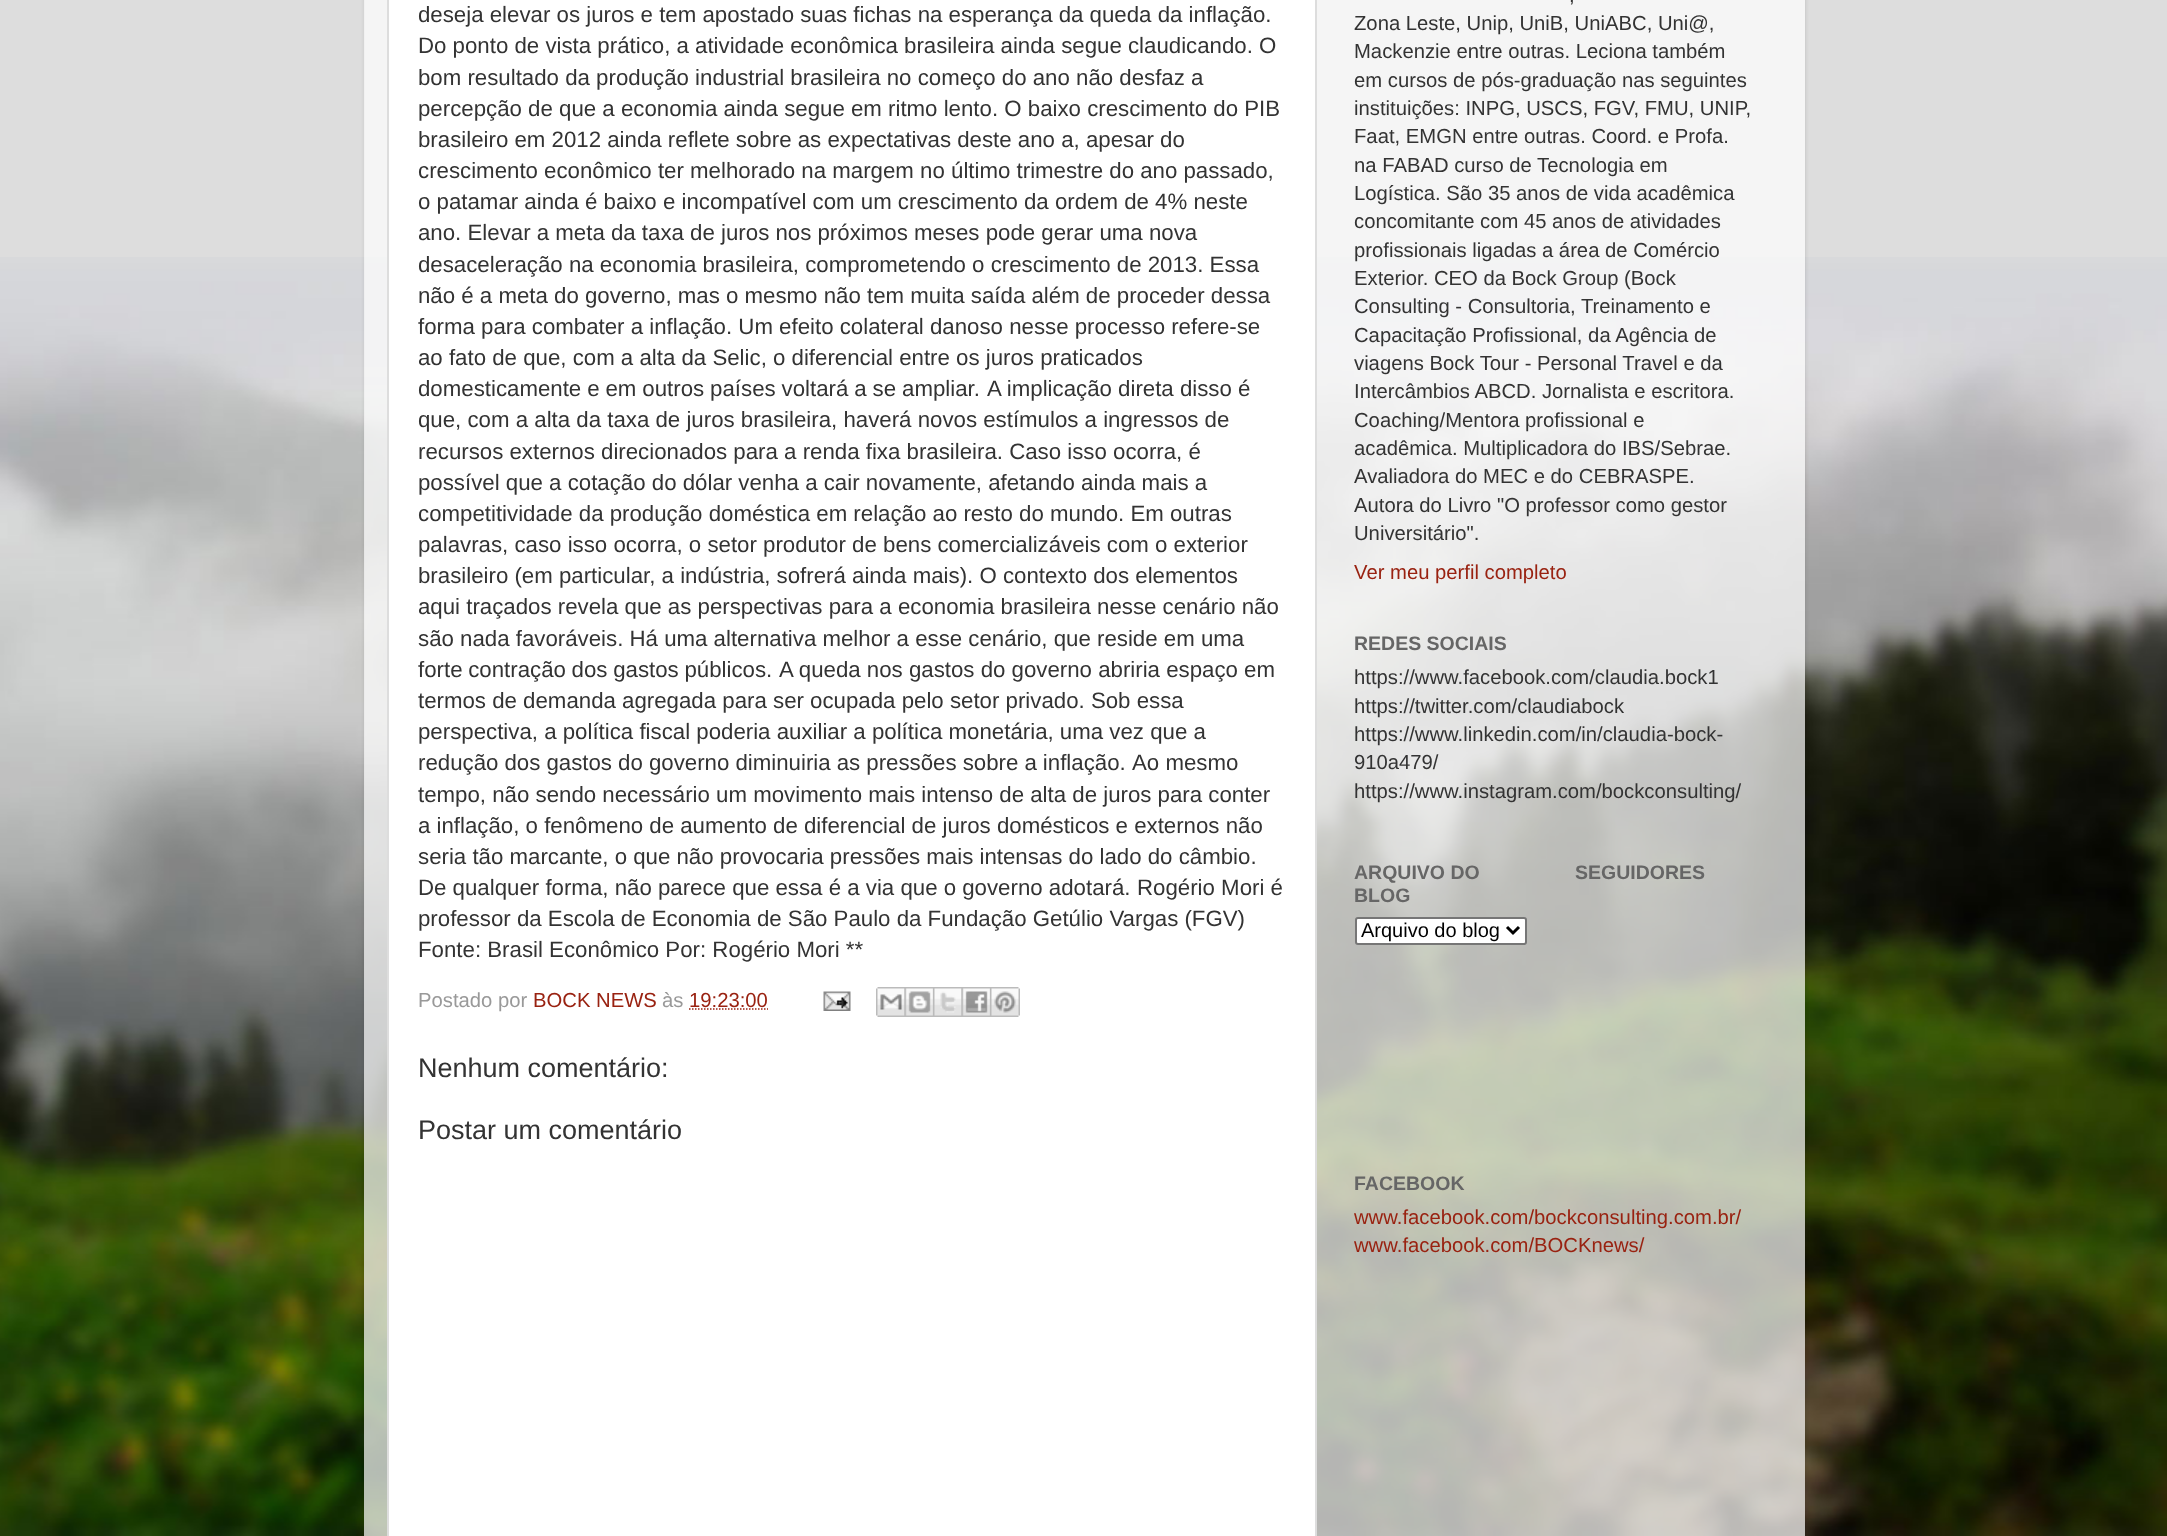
<svg xmlns="http://www.w3.org/2000/svg" width="2167" height="1536" viewBox="0 0 2167 1536">
  <style>
    .t1 { font: 22.25px Liberation Sans; fill: #333; }
    .t2 { font: 20.25px Liberation Sans; fill: #999; }
    .t3 { font: 20.25px Liberation Sans; fill: #921; }
    .t4 { font: 27px Liberation Sans; fill: #333; }
    .t5 { font: 20.25px Liberation Sans; fill: #333; }
    .t6 { font: bold 19.5px Liberation Sans; fill: #666; }
    .t7 { font: 20px Liberation Sans; fill: #000; }
  </style>
  <defs>
    <clipPath id="clip1"><path d="M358 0H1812V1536H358ZM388-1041H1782C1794.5-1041 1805-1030.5 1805-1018V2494C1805 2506.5 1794.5 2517 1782 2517H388C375.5 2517 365 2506.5 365 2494V-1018C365-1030.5 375.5-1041 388-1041Z" clip-rule="evenodd"/></clipPath>
  </defs>
  <rect width="100%" height="100%" fill="#ddd"/>
  <image x="0" y="257" width="2167" height="1279" href="images/1.png"/>
  <g clip-path="url(#clip1)">
    <rect x="365" y="-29" width="1440" height="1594" rx="23" fill="#00000026" filter="blur(2px)"/>
  </g>
  <rect x="364" y="0" width="1441" height="1536" fill="#ffffffb3"/>
  <rect x="388" y="-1" width="928" height="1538" fill="#fff" stroke="#ddd" stroke-width="2"/>
  <text x="418" y="22" class="t1">deseja elevar os juros e tem apostado suas fichas na esperança da queda da inflação.</text>
  <text x="418" y="53" class="t1">Do ponto de vista prático, a atividade econômica brasileira ainda segue claudicando. O</text>
  <text x="418" y="85" class="t1">bom resultado da produção industrial brasileira no começo do ano não desfaz a</text>
  <text x="418" y="116" class="t1">percepção de que a economia ainda segue em ritmo lento. O baixo crescimento do PIB</text>
  <text x="418" y="147" class="t1">brasileiro em 2012 ainda reflete sobre as expectativas deste ano a, apesar do</text>
  <text x="418" y="178" class="t1">crescimento econômico ter melhorado na margem no último trimestre do ano passado,</text>
  <text x="418" y="209" class="t1">o patamar ainda é baixo e incompatível com um crescimento da ordem de 4% neste</text>
  <text x="418" y="240" class="t1">ano. Elevar a meta da taxa de juros nos próximos meses pode gerar uma nova</text>
  <text x="418" y="272" class="t1">desaceleração na economia brasileira, comprometendo o crescimento de 2013. Essa</text>
  <text x="418" y="303" class="t1">não é a meta do governo, mas o mesmo não tem muita saída além de proceder dessa</text>
  <text x="418" y="334" class="t1">forma para combater a inflação. Um efeito colateral danoso nesse processo refere-se</text>
  <text x="418" y="365" class="t1">ao fato de que, com a alta da Selic, o diferencial entre os juros praticados</text>
  <text x="418" y="396" word-spacing="-0.25" class="t1">domesticamente e em outros países voltará a se ampliar.</text>
  <text x="987" y="396" class="t1">A implicação direta disso é</text>
  <text x="418" y="427" class="t1">que, com a alta da taxa de juros brasileira, haverá novos estímulos a ingressos de</text>
  <text x="418" y="459" class="t1">recursos externos direcionados para a renda fixa brasileira. Caso isso ocorra, é</text>
  <text x="418" y="490" class="t1">possível que a cotação do dólar venha a cair novamente, afetando ainda mais a</text>
  <text x="418" y="521" class="t1">competitividade da produção doméstica em relação ao resto do mundo. Em outras</text>
  <text x="418" y="552" class="t1">palavras, caso isso ocorra, o setor produtor de bens comercializáveis com o exterior</text>
  <text x="418" y="583" class="t1">brasileiro (em particular, a indústria, sofrerá ainda mais). O contexto dos elementos</text>
  <text x="418" y="614" class="t1">aqui traçados revela que as perspectivas para a economia brasileira nesse cenário não</text>
  <text x="418" y="646" class="t1">são nada favoráveis. Há uma alternativa melhor a esse cenário, que reside em uma</text>
  <text x="418" y="677" word-spacing="-0.5" class="t1">forte contração dos gastos públicos.</text>
  <text x="779" y="677" class="t1">A queda nos gastos do governo abriria espaço em</text>
  <text x="418" y="708" class="t1">termos de demanda agregada para ser ocupada pelo setor privado. Sob essa</text>
  <text x="418" y="739" class="t1">perspectiva, a política fiscal poderia auxiliar a política monetária, uma vez que a</text>
  <text x="418" y="770" word-spacing="-0.1" class="t1">redução dos gastos do governo diminuiria as pressões sobre a inflação.</text>
  <text x="1132" y="770" class="t1">Ao mesmo</text>
  <text x="418" y="802" class="t1">tempo, não sendo necessário um movimento mais intenso de alta de juros para conter</text>
  <text x="418" y="833" class="t1">a inflação, o fenômeno de aumento de diferencial de juros domésticos e externos não</text>
  <text x="418" y="864" class="t1">seria tão marcante, o que não provocaria pressões mais intensas do lado do câmbio.</text>
  <text x="418" y="895" class="t1">De qualquer forma, não parece que essa é a via que o governo adotará.</text>
  <text x="1137" y="895" class="t1">Rogério Mori é</text>
  <text x="418" y="926" class="t1">professor da Escola de Economia de São Paulo da Fundação Getúlio Vargas (FGV)</text>
  <text x="418" y="957" class="t1">Fonte: Brasil Econômico Por: Rogério Mori **</text>
  <text x="418" y="1007" class="t2">Postado por</text>
  <text x="533" y="1007" class="t3">BOCK NEWS</text>
  <text x="662" y="1007" class="t2">às</text>
  <text x="689" y="1007" class="t3">19:23:00</text>
  <path d="M689 1009H768" fill="none" stroke="#921" stroke-width="1.5" stroke-dasharray="1.5 1.5"/>
  <image x="823" y="991" width="28" height="20" href="images/2.png"/>
  <image x="876" y="987" width="29" height="30" href="images/3.png"/>
  <image x="904" y="987" width="29" height="30" href="images/4.png"/>
  <image x="933" y="987" width="29" height="30" href="images/5.png"/>
  <image x="961" y="987" width="29" height="30" href="images/6.png"/>
  <image x="990" y="987" width="30" height="30" href="images/7.png"/>
  <text x="418" y="1077" class="t4">Nenhum comentário:</text>
  <text x="418" y="1139" class="t4">Postar um comentário</text>
  <text x="1569" y="2" class="t5">,</text>
  <text x="1354" y="30" class="t5">Zona Leste, Unip, UniB, UniABC, Uni@,</text>
  <text x="1354" y="58" class="t5">Mackenzie entre outras. Leciona também</text>
  <text x="1354" y="87" class="t5">em cursos de pós-graduação nas seguintes</text>
  <text x="1354" y="115" class="t5">instituições: INPG, USCS, FGV, FMU, UNIP,</text>
  <text x="1354" y="143" class="t5">Faat, EMGN entre outras. Coord. e Profa.</text>
  <text x="1354" y="172" class="t5">na FABAD curso de Tecnologia em</text>
  <text x="1354" y="200" class="t5">Logística. São 35 anos de vida acadêmica</text>
  <text x="1354" y="228" class="t5">concomitante com 45 anos de atividades</text>
  <text x="1354" y="257" class="t5">profissionais ligadas a área de Comércio</text>
  <text x="1354" y="285" class="t5">Exterior. CEO da Bock Group (Bock</text>
  <text x="1354" y="313" class="t5">Consulting - Consultoria, Treinamento e</text>
  <text x="1354" y="342" class="t5">Capacitação Profissional, da Agência de</text>
  <text x="1354" y="370" class="t5">viagens Bock Tour - Personal Travel e da</text>
  <text x="1354" y="398" class="t5">Intercâmbios ABCD. Jornalista e escritora.</text>
  <text x="1354" y="427" class="t5">Coaching/Mentora profissional e</text>
  <text x="1354" y="455" class="t5">acadêmica. Multiplicadora do IBS/Sebrae.</text>
  <text x="1354" y="483" class="t5">Avaliadora do MEC e do CEBRASPE.</text>
  <text x="1354" y="512" class="t5">Autora do Livro "O professor como gestor</text>
  <text x="1354" y="540" class="t5">Universitário".</text>
  <text x="1354" y="579" class="t3">Ver meu perfil completo</text>
  <text x="1354" y="650" class="t6">REDES SOCIAIS</text>
  <text x="1354" y="684" class="t5">https://www.facebook.com/claudia.bock1</text>
  <text x="1354" y="713" class="t5">https://twitter.com/claudiabock</text>
  <text x="1354" y="741" class="t5">https://www.linkedin.com/in/claudia-bock-</text>
  <text x="1354" y="769" class="t5">910a479/</text>
  <text x="1354" y="798" class="t5">https://www.instagram.com/bockconsulting/</text>
  <text x="1354" y="879" class="t6">ARQUIVO DO</text>
  <text x="1354" y="902" class="t6">BLOG</text>
  <rect x="1356" y="918" width="170" height="26" rx="2" fill="#fff" stroke="#767676" stroke-width="2"/>
  <path d="M1507 927L1513 933L1519 927" fill="none" stroke="#000" stroke-width="3"/>
  <text x="1361" y="937" class="t7">Arquivo do blog</text>
  <text x="1575" y="879" class="t6">SEGUIDORES</text>
  <text x="1354" y="1190" class="t6">FACEBOOK</text>
  <text x="1354" y="1224" class="t3">www.facebook.com/bockconsulting.com.br/</text>
  <text x="1354" y="1252" class="t3">www.facebook.com/BOCKnews/</text>
</svg>
